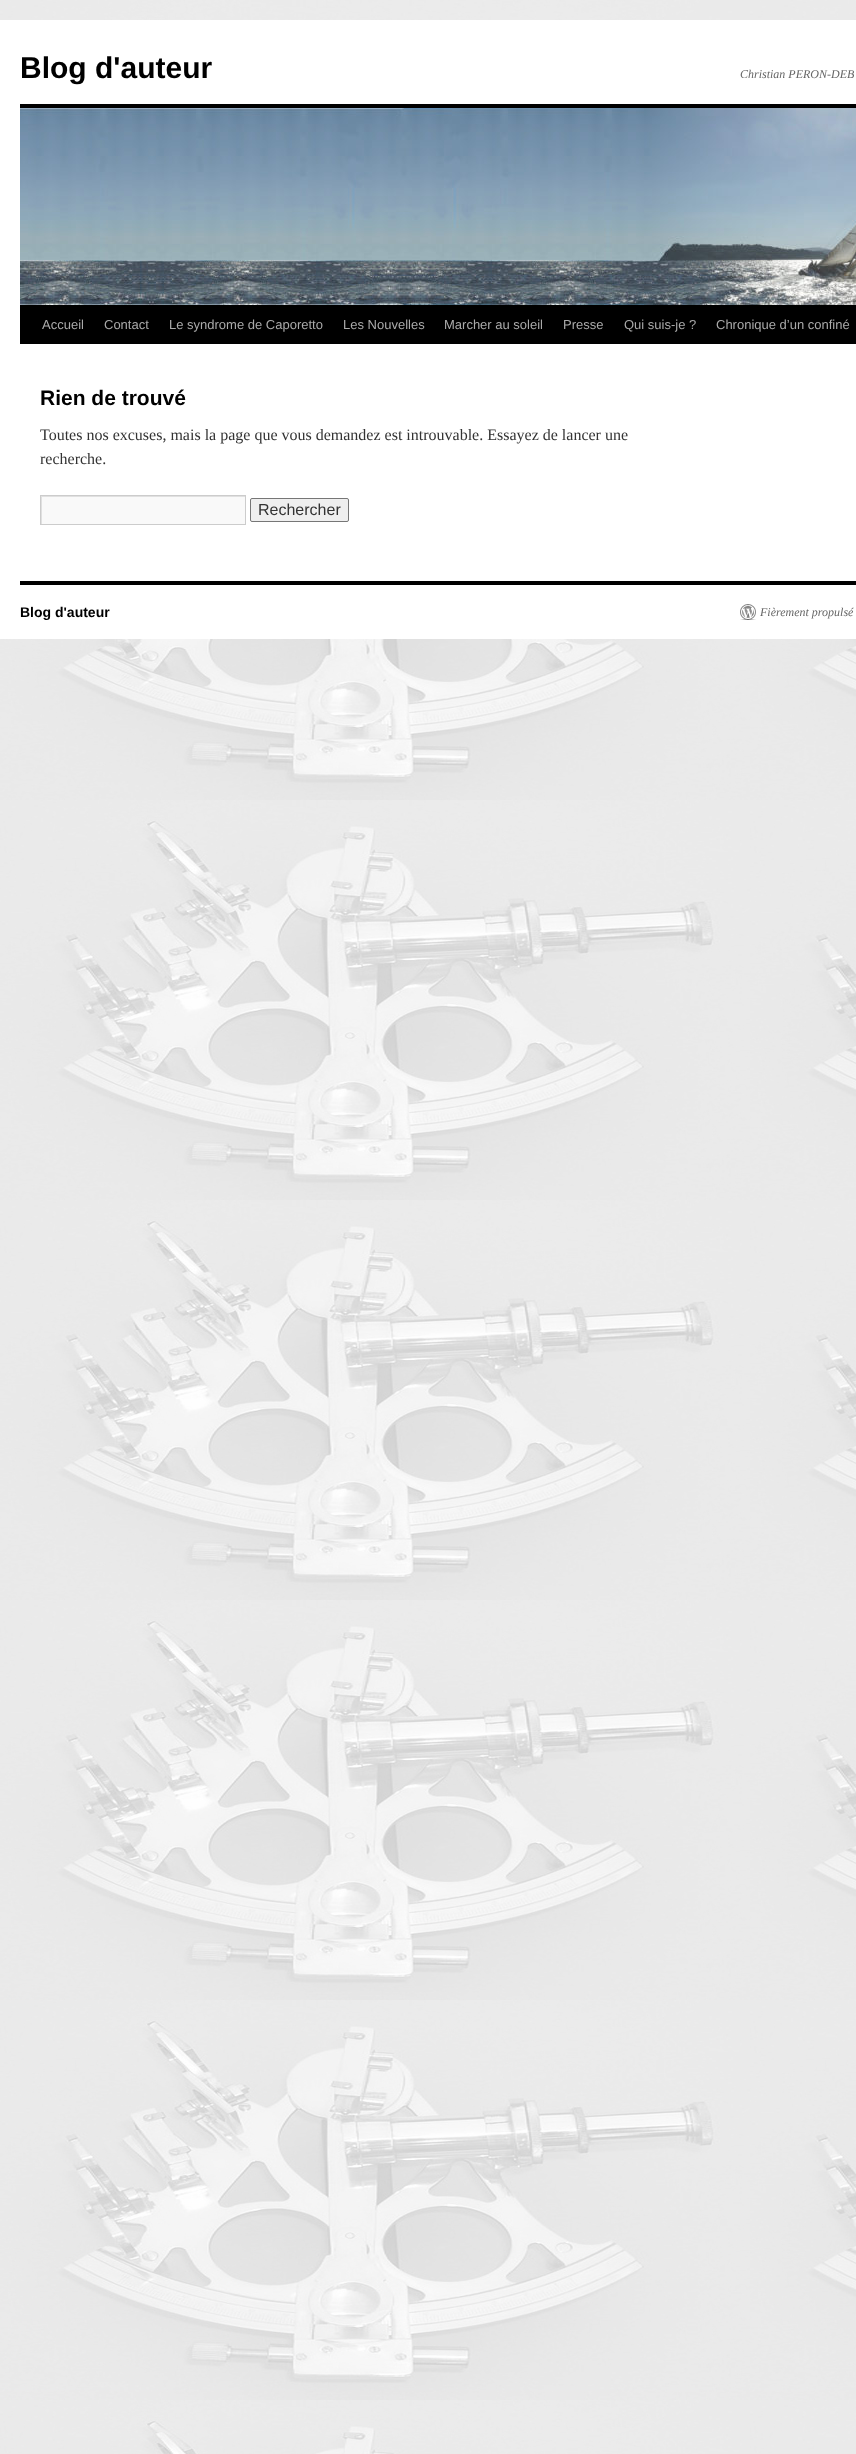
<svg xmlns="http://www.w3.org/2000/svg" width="856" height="2454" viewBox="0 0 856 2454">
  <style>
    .t1 { font: bold 30px Liberation Sans; fill: #000; }
    .t2 { font: italic 12px Liberation Serif; fill: #666; }
    .t3 { font: 13px Liberation Sans; fill: #aaa; }
    .t4 { font: bold 21px Liberation Sans; fill: #000; }
    .t5 { font: 16px Liberation Serif; fill: #333; }
    .t6 { font: 16px Liberation Sans; fill: #333; }
    .t7 { font: bold 14px Liberation Sans; fill: #000; }
  </style>
  <defs>
    <clipPath id="clip1"><rect x="41" y="496" width="204" height="28"/></clipPath>
  </defs>
  <rect width="100%" height="100%" fill="#fff"/>
  <image x="0" y="0" width="856" height="2454" href="images/1.png"/>
  <rect x="0" y="20" width="856" height="619" fill="#fff"/>
  <text x="20" y="78" class="t1">Blog d'auteur</text>
  <text x="740" y="78" class="t2">Christian PERON-DEB</text>
  <rect x="20" y="104" width="836" height="4" fill="#000"/>
  <rect x="20" y="305" width="836" height="39" fill="#000"/>
  <image x="20" y="108" width="836" height="197" href="images/2.png"/>
  <text x="42" y="329" class="t3">Accueil</text>
  <text x="104" y="329" class="t3">Contact</text>
  <text x="169" y="329" class="t3">Le syndrome de Caporetto</text>
  <text x="343" y="329" class="t3">Les Nouvelles</text>
  <text x="444" y="329" class="t3">Marcher au soleil</text>
  <text x="563" y="329" class="t3">Presse</text>
  <text x="624" y="329" class="t3">Qui suis-je ?</text>
  <text x="716" y="329" class="t3">Chronique d’un confiné</text>
  <text x="40" y="405" class="t4">Rien de trouvé</text>
  <text x="40" y="440" class="t5">Toutes nos excuses, mais la page que vous demandez est introuvable. Essayez de lancer une</text>
  <text x="40" y="464" class="t5">recherche.</text>
  <rect x="42" y="497" width="203" height="27" fill="#f9f9f9"/>
  <g clip-path="url(#clip1)">
    <path d="M-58 397H344V623H-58ZM42 497H246V525H42Z" fill="#e0e0e0" fill-rule="evenodd"/>
  </g>
  <rect x="40.5" y="495.5" width="205" height="29" fill="none" stroke="#ccc"/>
  <rect x="250.5" y="498.5" width="98" height="23" rx="1.5" fill="#efefef" stroke="#767676"/>
  <text x="258" y="515" class="t6">Rechercher</text>
  <rect x="20" y="581" width="836" height="4" fill="#000"/>
  <text x="20" y="617" class="t7">Blog d'auteur</text>
  <image x="740" y="604" width="16" height="16" href="images/3.png"/>
  <text x="760" y="616" class="t2">Fièrement propulsé</text>
</svg>
